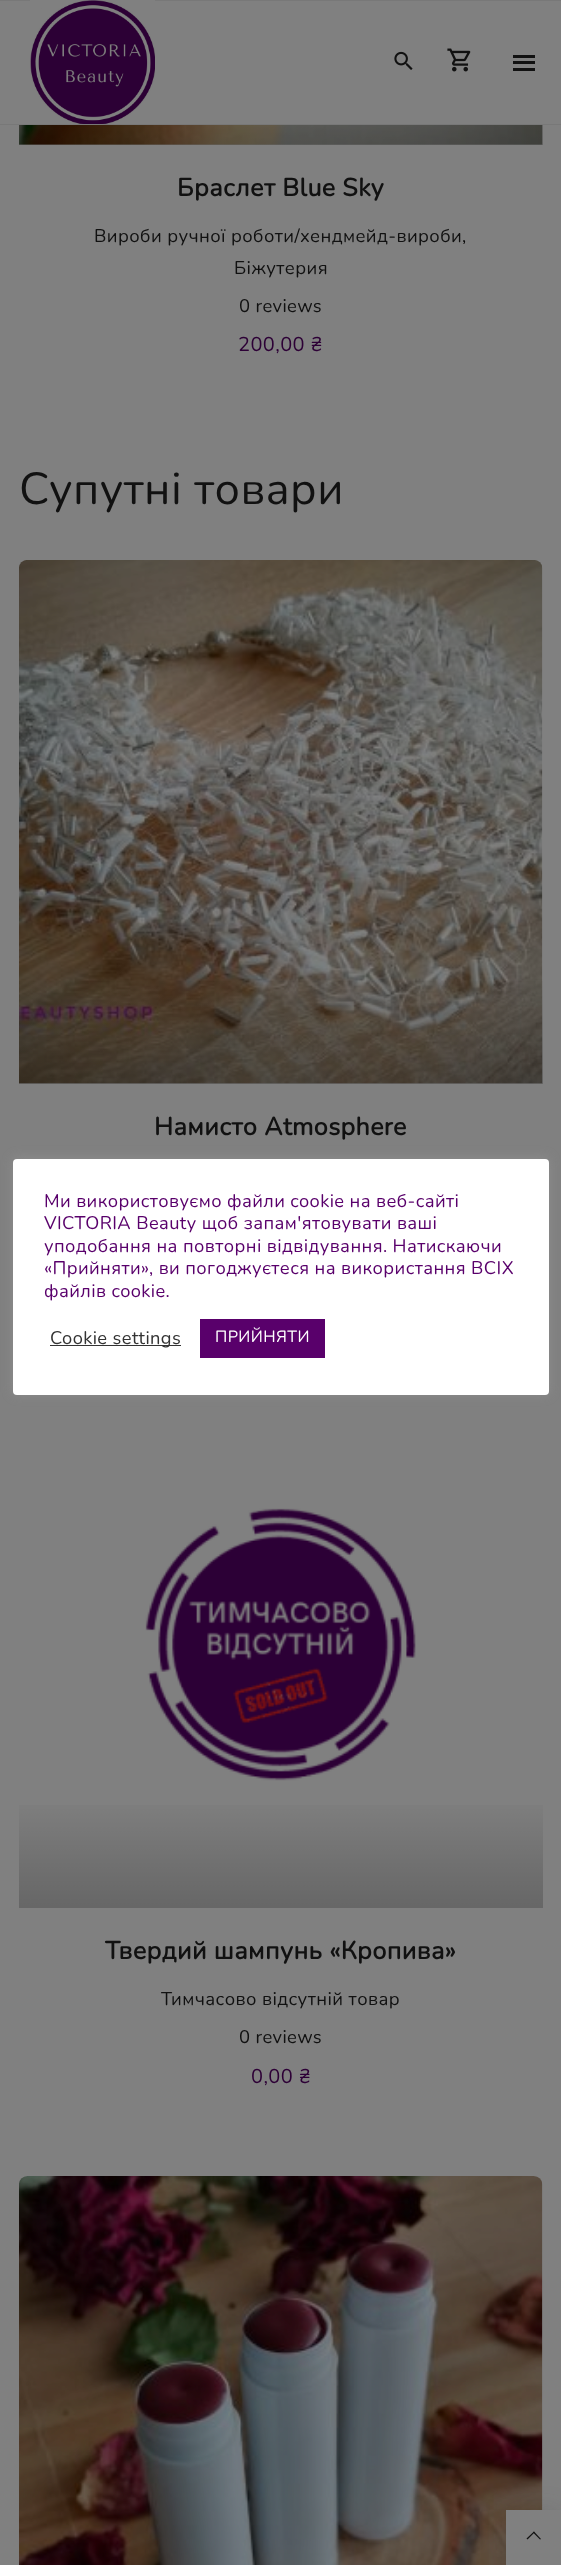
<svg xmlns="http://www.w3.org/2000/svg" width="561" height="2565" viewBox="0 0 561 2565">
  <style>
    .t1 { font: bold 25px Nunito; letter-spacing: 0.4px; fill: #111; }
    .t2 { font: 200 18.4px Nunito; letter-spacing: 0.4px; fill: #111; }
    .t3 { font: 200 18.4px Nunito; letter-spacing: 0.4px; fill: #090909; }
    .t4 { font: 200 20px Nunito; letter-spacing: 0.4px; fill: #2d0036; }
    .t5 { font: 200 45px Nunito; letter-spacing: 0.4px; fill: #111; }
    .t6 { font: 200 18.3px Nunito; letter-spacing: 0.4px; fill: #59006b; }
    .t7 { font: 200 18.3px Nunito; letter-spacing: 0.4px; fill: #333; }
    .t8 { font: 200 16.25px Nunito; letter-spacing: 0.4px; fill: #fff; }
  </style>
  <defs>
    <linearGradient id="g1" gradientUnits="userSpaceOnUse" x1="281" y1="145" x2="281" y2="30"><stop offset="0" stop-color="#000" stop-opacity="0.2"/><stop offset="1" stop-color="#000" stop-opacity="0"/></linearGradient>
    <linearGradient id="g2" gradientUnits="userSpaceOnUse" x1="281" y1="1084" x2="281" y2="969"><stop offset="0" stop-color="#000" stop-opacity="0.2"/><stop offset="1" stop-color="#000" stop-opacity="0"/></linearGradient>
    <linearGradient id="g3" gradientUnits="userSpaceOnUse" x1="281" y1="1908" x2="281" y2="1793"><stop offset="0" stop-color="#000" stop-opacity="0.2"/><stop offset="1" stop-color="#000" stop-opacity="0"/></linearGradient>
  </defs>
  <rect width="100%" height="100%" fill="#808080"/>
  <rect x="0" y="0" width="561" height="1" fill="#787878"/>
  <image x="30" y="0" width="125" height="124" href="images/1.png"/>
  <image x="394" y="51" width="19" height="19" href="images/2.png"/>
  <image x="447" y="48" width="24" height="24" href="images/3.png"/>
  <rect x="513" y="61" width="22" height="3" fill="#111"/>
  <rect x="513" y="55" width="22" height="3" fill="#111"/>
  <rect x="513" y="68" width="22" height="3" fill="#111"/>
  <rect x="0" y="124" width="561" height="1" fill="#787878"/>
  <image x="19" y="125" width="524" height="20" href="images/4.png"/>
  <rect x="19" y="125" width="524" height="20" fill="url(#g1)"/>
  <text x="177" y="196" class="t1">Браслет Blue Sky</text>
  <text x="94" y="242" class="t2">Вироби ручної роботи/хендмейд-вироби</text>
  <text x="462" y="242" class="t3">,</text>
  <text x="234" y="274" class="t2">Біжутерия</text>
  <text x="239" y="312" class="t2">0 reviews</text>
  <text x="238" y="351" class="t4">200,00 ₴</text>
  <text x="19" y="504" class="t5">Супутні товари</text>
  <image x="19" y="560" width="524" height="524" href="images/5.png"/>
  <rect x="19" y="981" width="524" height="103" fill="url(#g2)"/>
  <text x="154" y="1135" class="t1">Намисто Аtmosphere</text>
  <image x="145" y="1508" width="271" height="273" href="images/6.png"/>
  <rect x="19" y="1805" width="524" height="103" fill="url(#g3)"/>
  <text x="105" y="1959" class="t1">Твердий шампунь «Кропива»</text>
  <text x="161" y="2005" class="t2">Тимчасово відсутній товар</text>
  <text x="239" y="2043" class="t2">0 reviews</text>
  <text x="251" y="2083" class="t4">0,00 ₴</text>
  <image x="19" y="2176" width="524" height="389" href="images/7.png"/>
  <rect x="13" y="1158" width="536" height="236" rx="4" fill="#acabab4d" filter="blur(6px)"/>
  <rect x="13" y="1159" width="536" height="236" rx="4" fill="#fff"/>
  <text x="44" y="1207" class="t6">Ми використовуємо файли cookie на веб-сайті</text>
  <text x="44" y="1229" class="t6">VICTORIA Beauty щоб запам'ятовувати ваші</text>
  <text x="44" y="1252" class="t6">уподобання на повторні відвідування. Натискаючи</text>
  <text x="44" y="1274" class="t6">«Прийняти», ви погоджуєтеся на використання ВСІХ</text>
  <text x="44" y="1297" class="t6">файлів cookie.</text>
  <rect x="50" y="1345" width="131" height="1" fill="#333"/>
  <text x="50" y="1344" class="t7">Cookie settings</text>
  <rect x="200" y="1319" width="125" height="39" fill="#59006b"/>
  <text x="215" y="1342" class="t8">ПРИЙНЯТИ</text>
  <rect x="506" y="2510" width="55" height="55" fill="#32323226" filter="blur(12.5px)"/>
  <rect x="506" y="2510" width="55" height="55" fill="#808080"/>
  <path d="M526.5 2538.5L534 2531.5L534.5 2532.5L527.5 2539.5Z" fill="#111"/>
  <path d="M533 2532.5L534 2531.5L541 2539L540 2539.5Z" fill="#111"/>
</svg>
